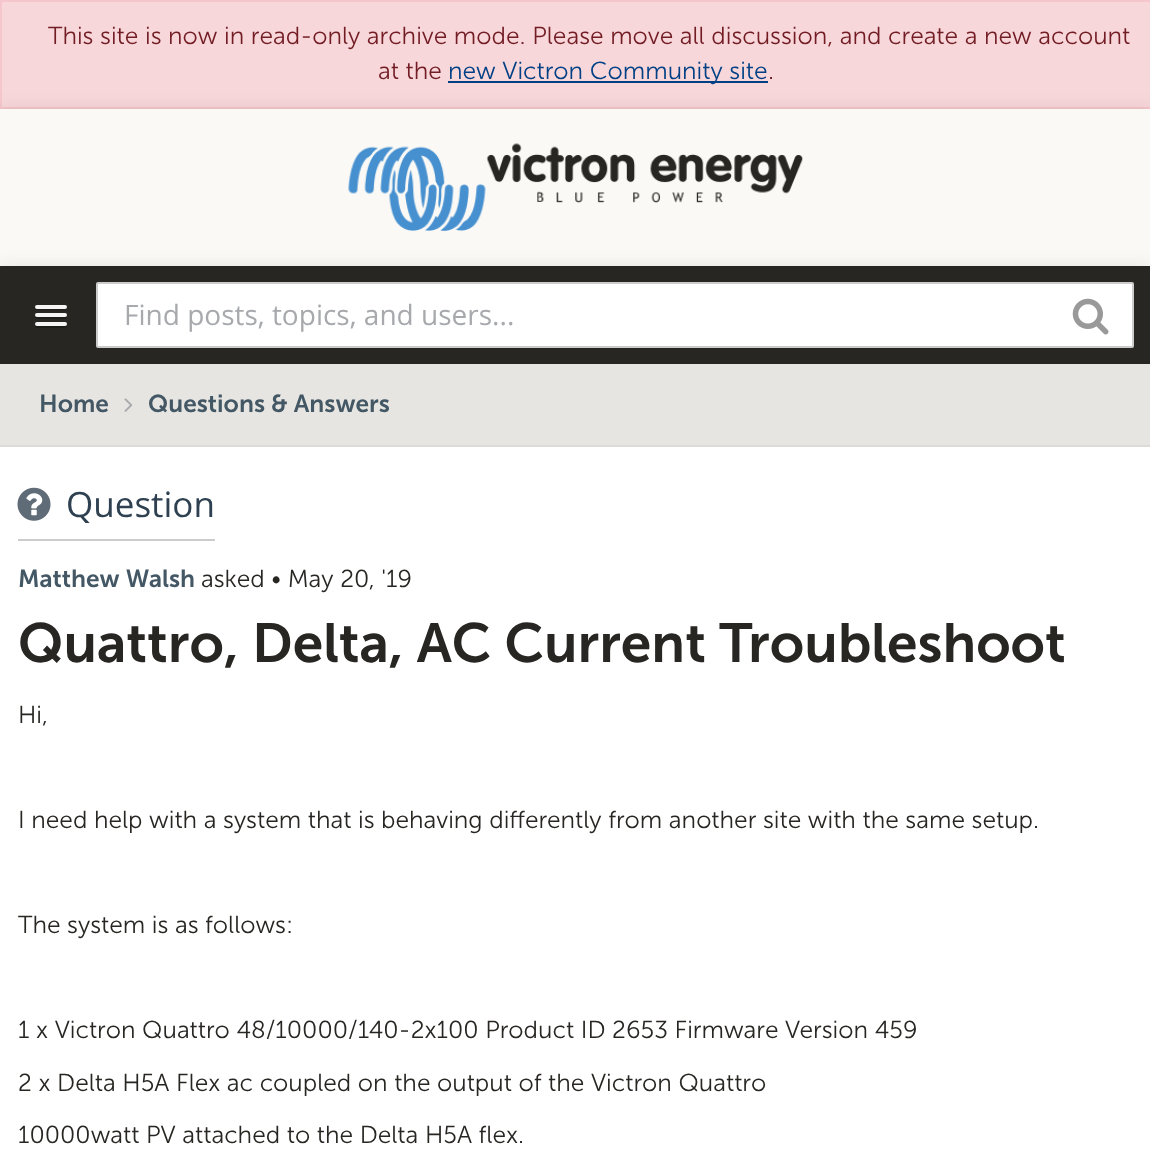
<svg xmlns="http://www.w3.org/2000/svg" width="1150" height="1156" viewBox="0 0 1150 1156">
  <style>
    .t1 { font: 24.5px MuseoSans; fill: #721c24; }
    .t2 { font: 24.5px MuseoSans; fill: #004085; }
    .t3 { font: 28px Open Sans; fill: #a7a9ac; }
    .t4 { font: 24.5px 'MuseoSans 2'; fill: #435765; }
    .t5 { font: 35px Open Sans; fill: #2f4151; }
    .t6 { font: 24.5px MuseoSans; fill: #272622; }
    .t7 { font: 55.1px 'MuseoSans 2'; fill: #272622; }
  </style>
  <rect width="100%" height="100%" fill="#fff"/>
  <rect x="1" y="1" width="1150" height="107" fill="#f8d7da" stroke="#f5c6cb" stroke-width="2"/>
  <text x="48" y="44" class="t1">This site is now in read-only archive mode. Please move all discussion, and create a new account</text>
  <text x="378" y="79" class="t1">at the</text>
  <rect x="0" y="110" width="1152" height="158" fill="#0000001a" filter="blur(9px)"/>
  <rect x="448" y="81" width="320" height="2" fill="#004085"/>
  <text x="448" y="79" class="t2">new Victron Community site</text>
  <text x="768" y="79" class="t1">.</text>
  <rect x="0" y="109" width="1150" height="157" fill="#faf9f5"/>
  <image x="348" y="143" width="455" height="88" href="images/1.png"/>
  <rect x="0" y="268" width="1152" height="98" fill="#0000001a" filter="blur(9px)"/>
  <rect x="0" y="266" width="1150" height="98" fill="#272622"/>
  <path d="M35 307C33.5 311 41 310 41.5 310H60.5C61.5 310 66.5 311 67 308.5C67 308 67 307 66.5 306.5C66.5 307.5 65.5 308 65 308H37C36 308 35.5 307.5 35 307Z" fill="#1d1d1a"/>
  <rect x="35" y="305" width="32" height="4" rx="2" fill="#f5f5f5"/>
  <path d="M35.5 316C33 320 41 319 41.5 319H51C53.5 319 65 319.5 66.5 318.5C67 317.5 67 316.5 66.5 315.5L65.5 316.5H36.5Z" fill="#1d1d1a"/>
  <rect x="35" y="313" width="32" height="4" rx="2" fill="#f5f5f5"/>
  <path d="M35.5 325L35 326.5C35.5 329 40.5 328 41.5 328H60.5C62 328 67 329 67 326L66.5 324.5C66 325 65.5 325.5 65 325.5H36.5Z" fill="#1d1d1a"/>
  <rect x="35" y="322" width="32" height="4" rx="2" fill="#f5f5f5"/>
  <rect x="97" y="283" width="1036" height="64" rx="1" fill="#fff" stroke="#ccc" stroke-width="2"/>
  <text x="124" y="325" class="t3">Find posts, topics, and users...</text>
  <image x="1072" y="298" width="37" height="37" href="images/2.png"/>
  <rect x="0" y="364" width="1150" height="81" fill="#e6e5e1"/>
  <rect x="0" y="445" width="1150" height="2" fill="#dcdbd7"/>
  <text x="39" y="412" class="t4">Home</text>
  <image x="124" y="398" width="9" height="14" href="images/3.png"/>
  <text x="148" y="412" class="t4">Questions &amp; Answers</text>
  <rect x="18" y="539" width="197" height="2" fill="#ccc"/>
  <image x="17" y="487" width="34" height="34" href="images/4.png"/>
  <text x="66" y="517" class="t5">Question</text>
  <text x="18" y="587" class="t4">Matthew Walsh</text>
  <text x="201" y="587" class="t6">asked • May 20, '19</text>
  <text x="18" y="662" class="t7">Quattro, Delta, AC Current Troubleshoot</text>
  <text x="18" y="723" class="t6">Hi,</text>
  <text x="18" y="828" class="t6">I need help with a system that is behaving differently from another site with the same setup.</text>
  <text x="18" y="933" class="t6">The system is as follows:</text>
  <text x="18" y="1038" class="t6">1 x Victron Quattro 48/10000/140-2x100 Product ID 2653 Firmware Version 459</text>
  <text x="18" y="1091" class="t6">2 x Delta H5A Flex ac coupled on the output of the Victron Quattro</text>
  <text x="18" y="1143" class="t6">10000watt PV attached to the Delta H5A flex.</text>
</svg>
